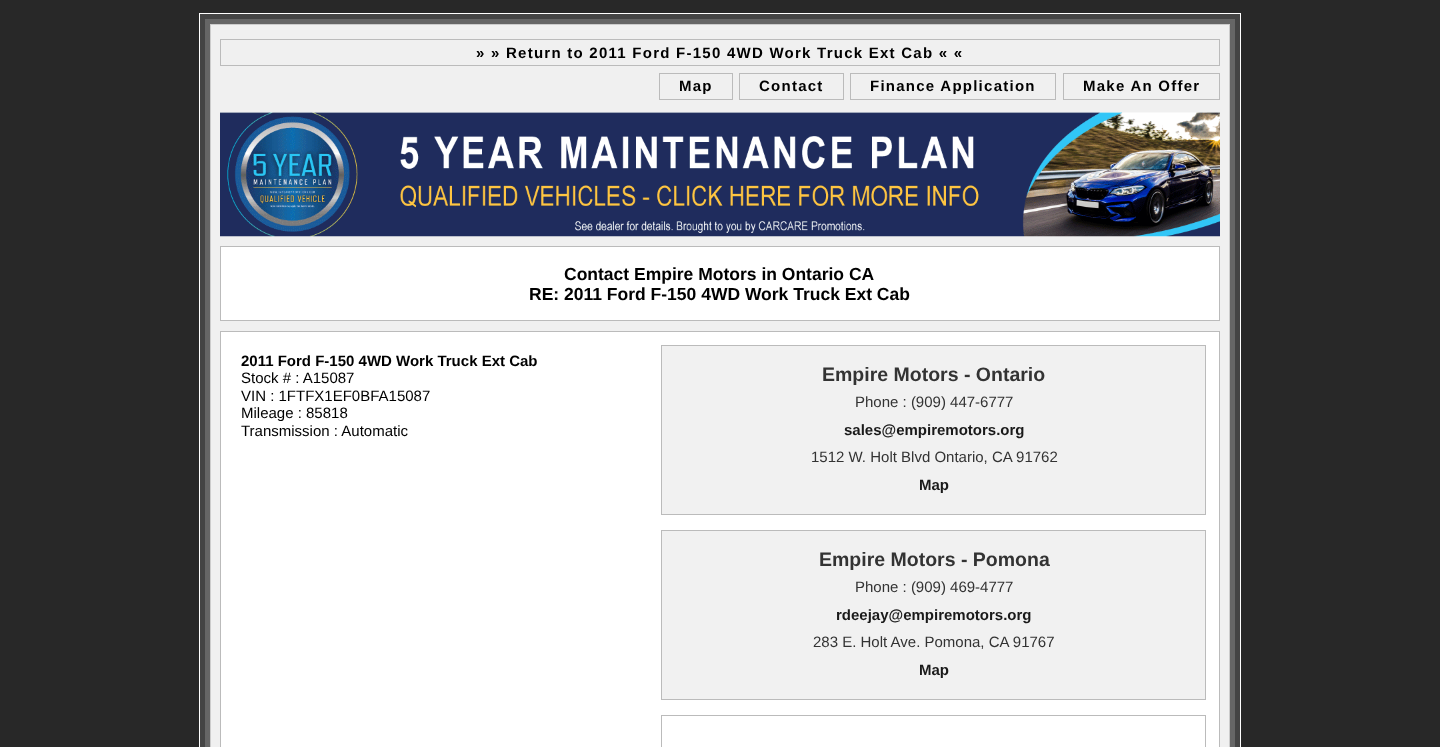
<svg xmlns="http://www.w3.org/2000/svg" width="1440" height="747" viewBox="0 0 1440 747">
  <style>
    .t1 { font: bold 15px Liberation Sans; letter-spacing: 1.25px; fill: #000; }
    .t2 { font: bold 17.5px Liberation Sans; fill: #000; }
    .t3 { font: bold 15px Liberation Sans; fill: #000; }
    .t4 { font: 15px Liberation Sans; fill: #000; }
    .t5 { font: bold 19.5px Liberation Sans; fill: #333; }
    .t6 { font: 15px Liberation Sans; fill: #333; }
    .t7 { font: bold 15px Liberation Sans; fill: #1a1a1a; }
  </style>
  <rect width="100%" height="100%" fill="#282828"/>
  <rect x="199.5" y="13.5" width="1041" height="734" fill="none" stroke="#fff"/>
  <rect x="202.5" y="16.5" width="1035" height="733" fill="#666" stroke="#444" stroke-width="5"/>
  <rect x="210.5" y="24.5" width="1019" height="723" fill="#f0f0f0" stroke="#ccc"/>
  <rect x="220.5" y="39.5" width="999" height="26" fill="none" stroke="#bbb"/>
  <text x="476" y="58" class="t1">» » Return to 2011 Ford F-150 4WD Work Truck Ext Cab « «</text>
  <rect x="659.5" y="73.5" width="73" height="26" fill="none" stroke="#bbb"/>
  <text x="679" y="91" class="t1">Map</text>
  <rect x="739.5" y="73.5" width="104" height="26" fill="none" stroke="#bbb"/>
  <text x="759" y="91" class="t1">Contact</text>
  <rect x="850.5" y="73.5" width="205" height="26" fill="none" stroke="#bbb"/>
  <text x="870" y="91" class="t1">Finance Application</text>
  <rect x="1063.5" y="73.5" width="156" height="26" fill="none" stroke="#bbb"/>
  <text x="1083" y="91" class="t1">Make An Offer</text>
  <image x="220" y="112" width="1000" height="125" href="images/1.png"/>
  <rect x="221" y="247" width="998" height="73" fill="#fff"/>
  <rect x="220" y="246" width="1000" height="1" fill="#bbb"/>
  <rect x="1219" y="246" width="1" height="75" fill="#bbb"/>
  <rect x="220" y="320" width="1000" height="1" fill="#bbb"/>
  <rect x="220" y="246" width="1" height="75" fill="#bbb"/>
  <text x="564" y="280" class="t2">Contact Empire Motors in Ontario CA</text>
  <text x="529" y="300" class="t2">RE: 2011 Ford F-150 4WD Work Truck Ext Cab</text>
  <rect x="221" y="332" width="998" height="415" fill="#fff"/>
  <rect x="220" y="331" width="1000" height="1" fill="#bbb"/>
  <rect x="1219" y="331" width="1" height="416" fill="#bbb"/>
  <rect x="220" y="331" width="1" height="416" fill="#bbb"/>
  <text x="241" y="366" class="t3">2011 Ford F-150 4WD Work Truck Ext Cab</text>
  <text x="241" y="383" class="t4">Stock # : A15087</text>
  <text x="241" y="401" class="t4">VIN : 1FTFX1EF0BFA15087</text>
  <text x="241" y="418" class="t4">Mileage : 85818</text>
  <text x="241" y="436" class="t4">Transmission : Automatic</text>
  <rect x="661.5" y="345.5" width="544" height="169" fill="#f1f1f1" stroke="#bbb"/>
  <text x="822" y="381" class="t5">Empire Motors - Ontario</text>
  <text x="855" y="407" class="t6">Phone : (909) 447-6777</text>
  <text x="844" y="435" class="t7">sales@empiremotors.org</text>
  <text x="811" y="462" class="t6">1512 W. Holt Blvd Ontario, CA 91762</text>
  <text x="919" y="490" class="t7">Map</text>
  <rect x="661.5" y="530.5" width="544" height="169" fill="#f1f1f1" stroke="#bbb"/>
  <text x="819" y="566" class="t5">Empire Motors - Pomona</text>
  <text x="855" y="592" class="t6">Phone : (909) 469-4777</text>
  <text x="836" y="620" class="t7">rdeejay@empiremotors.org</text>
  <text x="813" y="647" class="t6">283 E. Holt Ave. Pomona, CA 91767</text>
  <text x="919" y="675" class="t7">Map</text>
  <rect x="661.5" y="715.5" width="544" height="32" fill="none" stroke="#bbb"/>
</svg>
